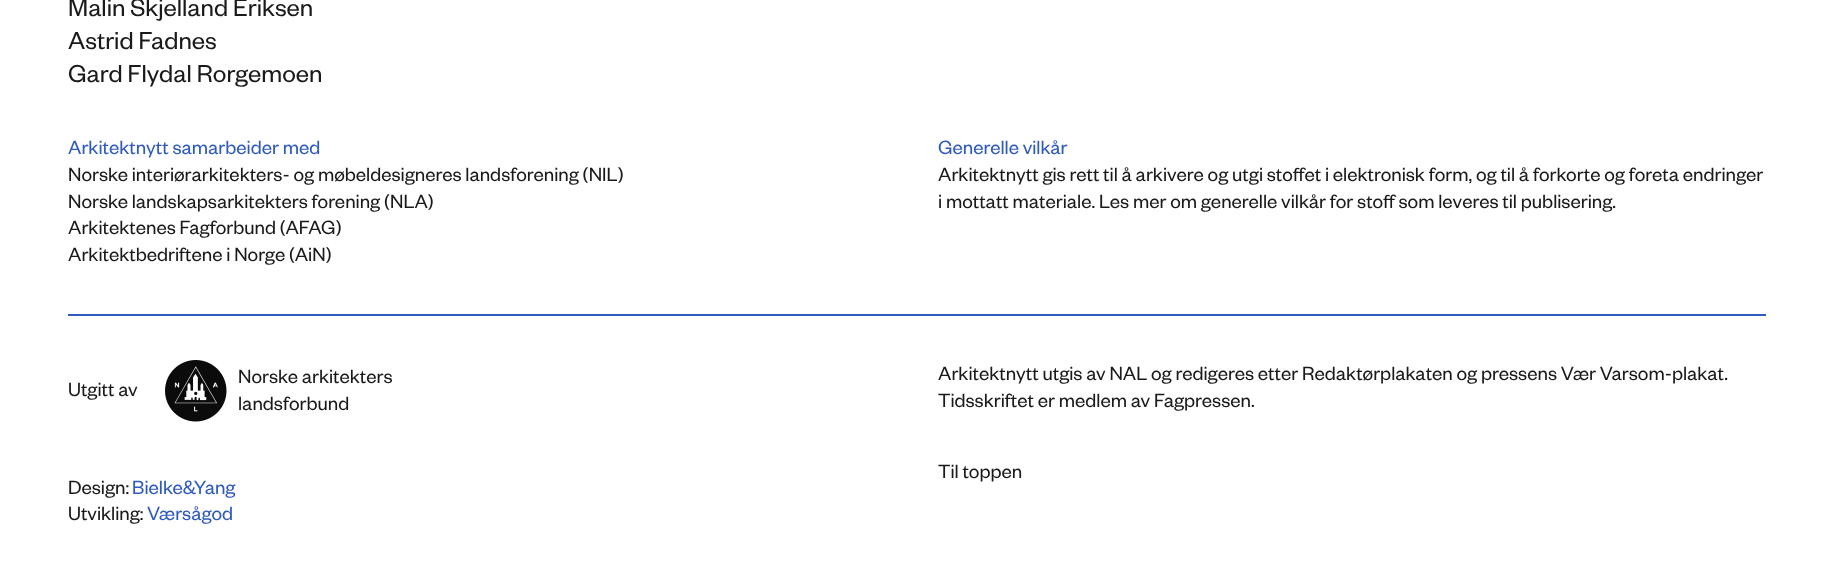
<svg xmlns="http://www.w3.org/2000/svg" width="1832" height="573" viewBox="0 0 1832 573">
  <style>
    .t1 { font: 27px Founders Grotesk; fill: #1a1a1a; }
    .t2 { font: 21px Founders Grotesk; fill: #2f5abe; }
    .t3 { font: 21px Founders Grotesk; fill: #1a1a1a; }
  </style>
  <rect width="100%" height="100%" fill="#fff"/>
  <text x="68" y="16" class="t1">Malin Skjelland Eriksen</text>
  <text x="68" y="49" class="t1">Astrid Fadnes</text>
  <text x="68" y="82" class="t1">Gard Flydal Rorgemoen</text>
  <text x="68" y="154" class="t2">Arkitektnytt samarbeider med</text>
  <text x="68" y="181" class="t3">Norske interiørarkitekters- og møbeldesigneres landsforening (NIL)</text>
  <text x="68" y="208" class="t3">Norske landskapsarkitekters forening (NLA)</text>
  <text x="68" y="234" class="t3">Arkitektenes Fagforbund (AFAG)</text>
  <text x="68" y="261" class="t3">Arkitektbedriftene i Norge (AiN)</text>
  <text x="938" y="154" class="t2">Generelle vilkår</text>
  <text x="938" y="181" class="t3">Arkitektnytt gis rett til å arkivere og utgi stoffet i elektronisk form, og til å forkorte og foreta endringer</text>
  <text x="938" y="208" class="t3">i mottatt materiale. Les mer om generelle vilkår for stoff som leveres til publisering.</text>
  <rect x="68" y="314" width="1698" height="2" fill="#2f5abe"/>
  <text x="68" y="396" class="t3">Utgitt av</text>
  <image x="165" y="360" width="62" height="62" href="images/1.png"/>
  <text x="238" y="383" class="t3">Norske arkitekters</text>
  <text x="238" y="410" class="t3">landsforbund</text>
  <text x="68" y="494" class="t3">Design:</text>
  <text x="132" y="494" class="t2">Bielke&amp;Yang</text>
  <text x="68" y="520" class="t3">Utvikling:</text>
  <text x="147" y="520" class="t2">Værsågod</text>
  <text x="938" y="380" class="t3">Arkitektnytt utgis av NAL og redigeres etter Redaktørplakaten og pressens Vær Varsom-plakat.</text>
  <text x="938" y="407" class="t3">Tidsskriftet er medlem av Fagpressen.</text>
  <text x="938" y="478" class="t3">Til toppen</text>
</svg>
